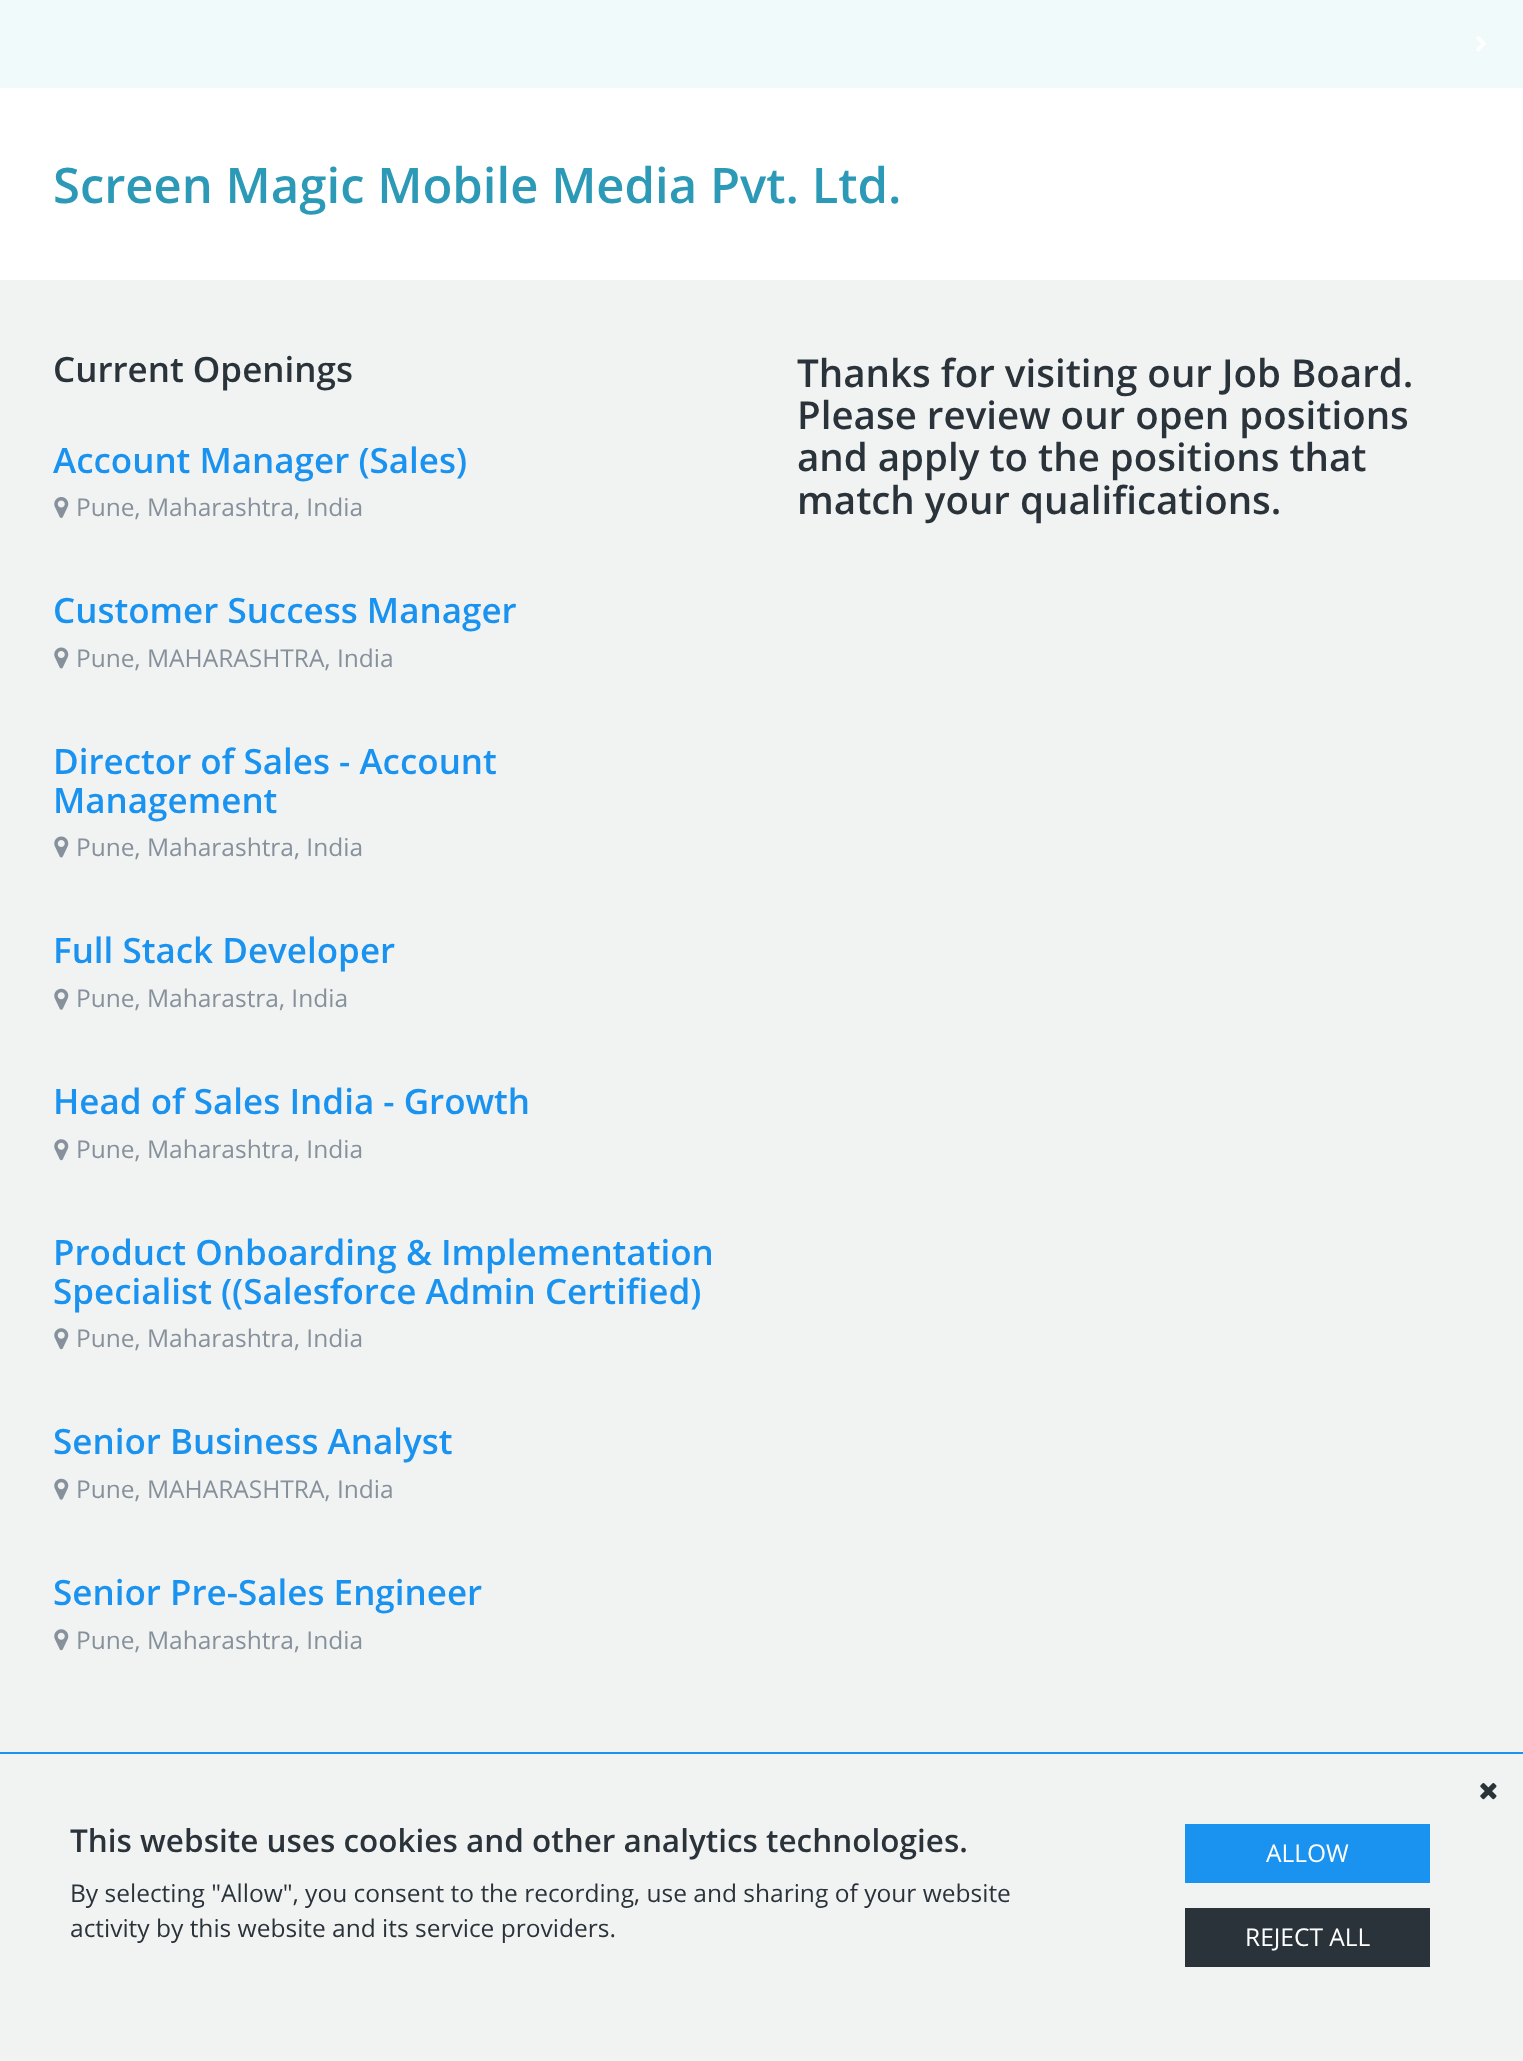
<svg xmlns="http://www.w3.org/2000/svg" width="1523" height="2061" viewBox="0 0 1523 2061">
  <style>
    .t1 { font: 600 49px Open Sans; fill: #2c9ab7; }
    .t2 { font: 600 35px Open Sans; fill: #2b333a; }
    .t3 { font: 600 35px Open Sans; fill: #1a93f0; }
    .t4 { font: 24.5px Open Sans; fill: #87919b; }
    .t5 { font: 600 38.5px Open Sans; fill: #2b333a; }
    .t6 { font: 600 31.5px Open Sans; fill: #2b333a; }
    .t7 { font: 24.5px Open Sans; fill: #2b333a; }
    .t8 { font: 24.5px Open Sans; fill: #fff; }
  </style>
  <rect width="100%" height="100%" fill="#f0fafa"/>
  <image x="1476" y="36" width="10" height="16" href="images/1.png"/>
  <rect x="0" y="88" width="1523" height="192" fill="#fff"/>
  <text x="53" y="203" class="t1">Screen Magic Mobile Media Pvt. Ltd.</text>
  <rect x="0" y="280" width="1523" height="1472" fill="#f1f3f3"/>
  <text x="53" y="382" class="t2">Current Openings</text>
  <text x="53" y="473" class="t3">Account Manager (Sales)</text>
  <image x="54" y="497" width="15" height="21" href="images/2.png"/>
  <text x="76" y="516" class="t4">Pune, Maharashtra, India</text>
  <text x="53" y="623" class="t3">Customer Success Manager</text>
  <image x="54" y="647" width="15" height="22" href="images/3.png"/>
  <text x="76" y="667" class="t4">Pune, MAHARASHTRA, India</text>
  <text x="53" y="774" class="t3">Director of Sales - Account</text>
  <text x="53" y="813" class="t3">Management</text>
  <image x="54" y="836" width="15" height="22" href="images/3.png"/>
  <text x="76" y="856" class="t4">Pune, Maharashtra, India</text>
  <text x="53" y="963" class="t3">Full Stack Developer</text>
  <image x="54" y="988" width="15" height="22" href="images/4.png"/>
  <text x="76" y="1007" class="t4">Pune, Maharastra, India</text>
  <text x="53" y="1114" class="t3">Head of Sales India - Growth</text>
  <image x="54" y="1139" width="15" height="22" href="images/5.png"/>
  <text x="76" y="1158" class="t4">Pune, Maharashtra, India</text>
  <text x="53" y="1265" class="t3">Product Onboarding &amp; Implementation</text>
  <text x="53" y="1304" class="t3">Specialist ((Salesforce Admin Certified)</text>
  <image x="54" y="1328" width="15" height="22" href="images/5.png"/>
  <text x="76" y="1347" class="t4">Pune, Maharashtra, India</text>
  <text x="53" y="1454" class="t3">Senior Business Analyst</text>
  <image x="54" y="1478" width="15" height="22" href="images/4.png"/>
  <text x="76" y="1498" class="t4">Pune, MAHARASHTRA, India</text>
  <text x="53" y="1605" class="t3">Senior Pre-Sales Engineer</text>
  <image x="54" y="1629" width="15" height="22" href="images/5.png"/>
  <text x="76" y="1649" class="t4">Pune, Maharashtra, India</text>
  <text x="797" y="387" class="t5">Thanks for visiting our Job Board.</text>
  <text x="797" y="429" class="t5">Please review our open positions</text>
  <text x="797" y="471" class="t5">and apply to the positions that</text>
  <text x="797" y="514" class="t5">match your qualifications.</text>
  <rect x="0" y="1754" width="1523" height="307" fill="#f1f3f3"/>
  <rect x="0" y="1752" width="1523" height="2" fill="#1a93f0"/>
  <image x="1480" y="1783" width="17" height="17" href="images/6.png"/>
  <text x="70" y="1852" class="t6">This website uses cookies and other analytics technologies.</text>
  <text x="70" y="1902" class="t7">By selecting "Allow", you consent to the recording, use and sharing of your website</text>
  <text x="70" y="1937" class="t7">activity by this website and its service providers.</text>
  <rect x="1185" y="1824" width="245" height="59" fill="#1a93f0"/>
  <text x="1266" y="1862" class="t8">ALLOW</text>
  <rect x="1185" y="1908" width="245" height="59" fill="#2b333a"/>
  <text x="1245" y="1946" class="t8">REJECT ALL</text>
</svg>
